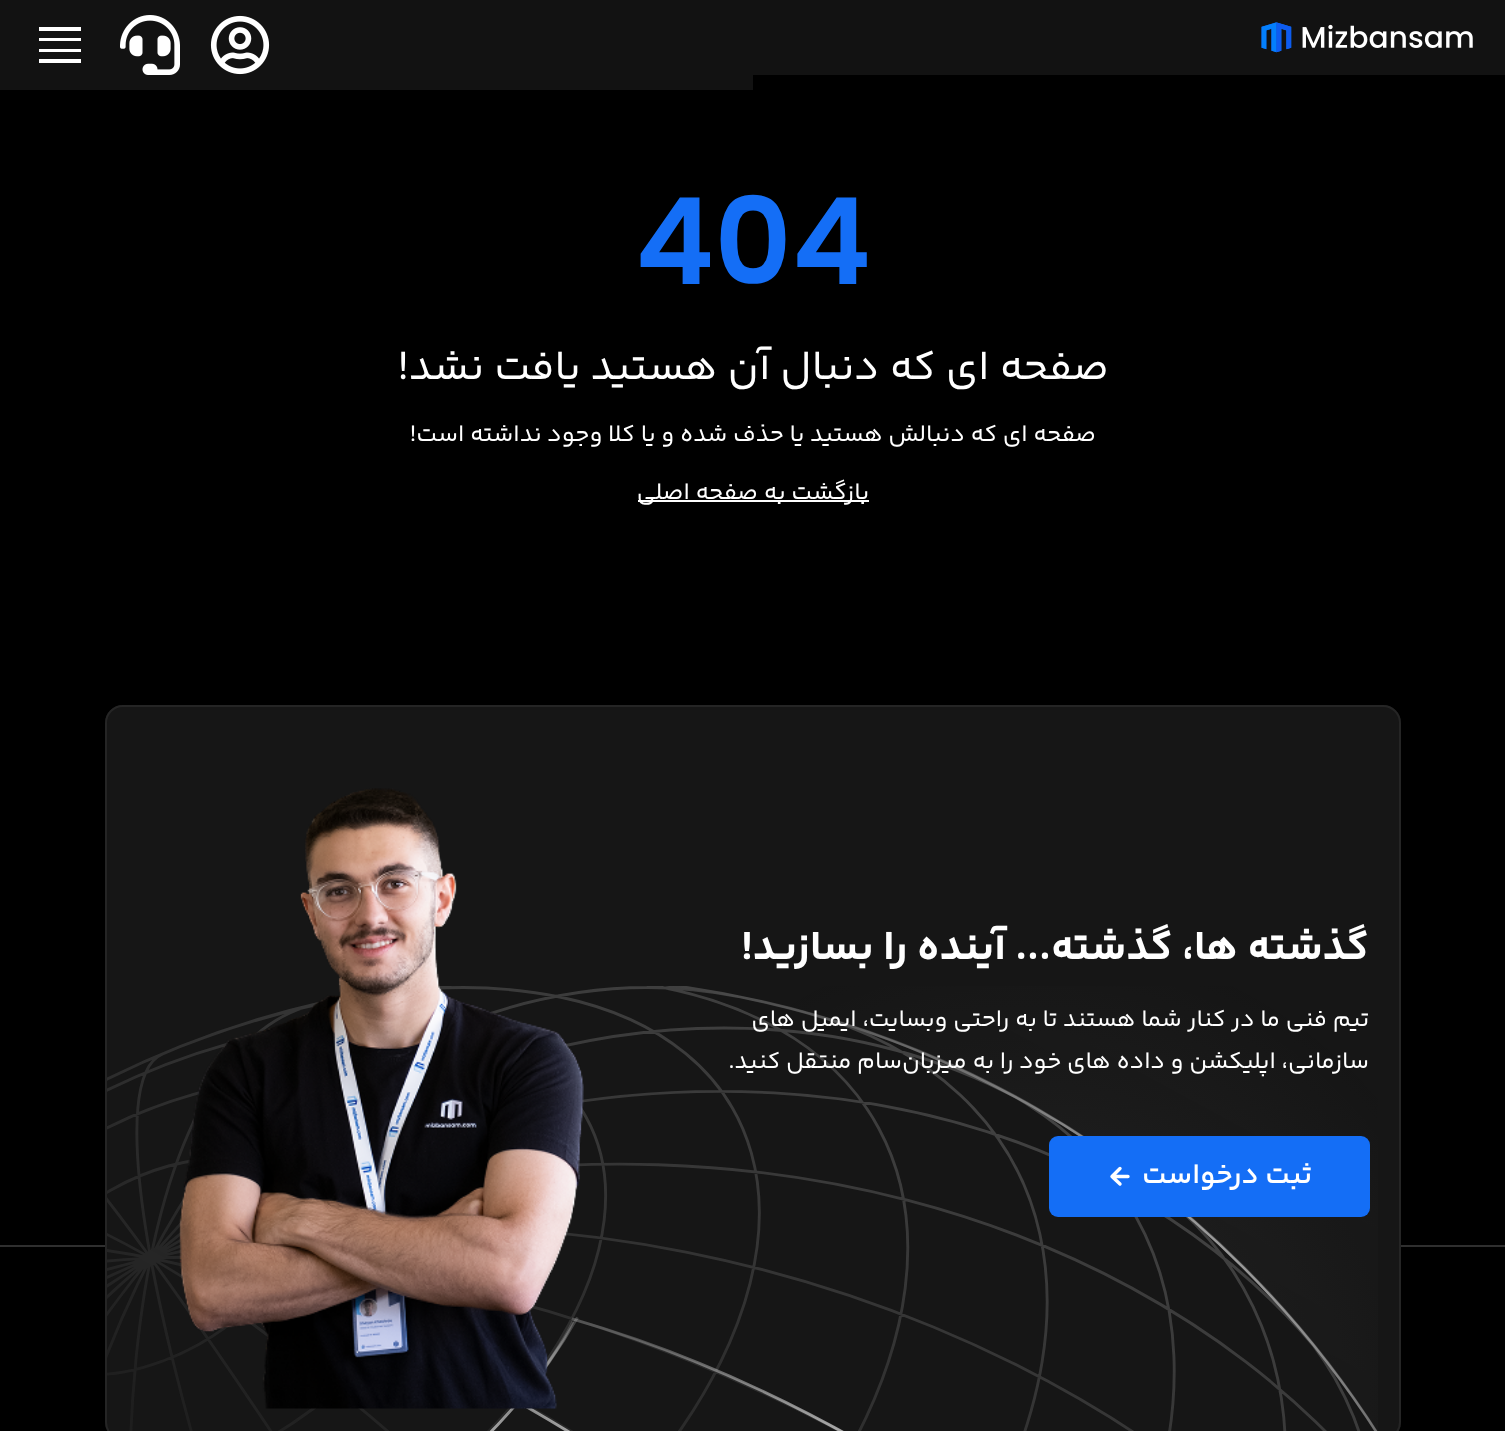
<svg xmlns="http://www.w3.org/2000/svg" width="1505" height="1431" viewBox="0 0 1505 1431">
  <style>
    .t1 { font: 600 120px Poppins; fill: #146ef6; }
    .t2 { font: 42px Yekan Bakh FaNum; direction: rtl; fill: #fff; }
    .t3 { font: 24px Yekan Bakh FaNum; direction: rtl; fill: #fff; }
    .t4 { font: bold 42px Yekan Bakh FaNum; direction: rtl; fill: #fff; }
    .t5 { font: 600 28.75px Yekan Bakh FaNum; direction: rtl; fill: #fff; }
  </style>
  <rect width="100%" height="100%" fill="#000"/>
  <rect x="753" y="0" width="752" height="75" fill="#121212"/>
  <image x="1261" y="22" width="212" height="31" href="images/1.png"/>
  <rect x="0" y="0" width="753" height="90" fill="#121212"/>
  <image x="210" y="15" width="60" height="60" href="images/2.png"/>
  <image x="120" y="15" width="60" height="60" href="images/3.png"/>
  <rect x="39" y="27" width="42" height="4" fill="#fff"/>
  <rect x="39" y="59" width="42" height="4" fill="#fff"/>
  <rect x="39" y="38" width="42" height="3" fill="#fff"/>
  <rect x="39" y="49" width="42" height="3" fill="#fff"/>
  <text x="635" y="284" class="t1">404</text>
  <text x="1109" y="379" class="t2">صفحه ای که دنبال آن هستید یافت نشد!</text>
  <text x="1096" y="441" class="t3">صفحه ای که دنبالش هستید یا حذف شده و یا کلا وجود نداشته است!</text>
  <rect x="638" y="500" width="231" height="2" fill="#fff"/>
  <text x="869" y="499" class="t3">بازگشت به صفحه اصلی</text>
  <rect x="0" y="1245" width="1505" height="2" fill="#2f2f2f"/>
  <rect x="105" y="705" width="1296" height="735" rx="18" fill="#161616"/>
  <image x="107" y="986" width="1271" height="445" href="images/4.png"/>
  <rect x="106" y="706" width="1294" height="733" rx="17" fill="none" stroke="#252525" stroke-width="2"/>
  <text x="1369" y="959" class="t4">گذشته ها، گذشته... آینده را بسازید!</text>
  <text x="1369" y="1026" class="t3">تیم فنی ما در کنار شما هستند تا به راحتی وبسایت، ایمیل های</text>
  <text x="1369" y="1068" class="t3">سازمانی، اپلیکشن و داده های خود را به میزبان‌سام منتقل کنید.</text>
  <rect x="1049" y="1136" width="321" height="81" rx="9" fill="#146ef6"/>
  <text x="1312" y="1183" class="t5">ثبت درخواست</text>
  <path d="M1128 1176.5H1112M1112 1176.5L1120 1168.5M1112 1176.5L1120 1184" fill="none" stroke="#fff" stroke-width="3.4" stroke-linecap="round" stroke-linejoin="round"/>
  <image x="179" y="788" width="405" height="621" href="images/5.png"/>
</svg>
